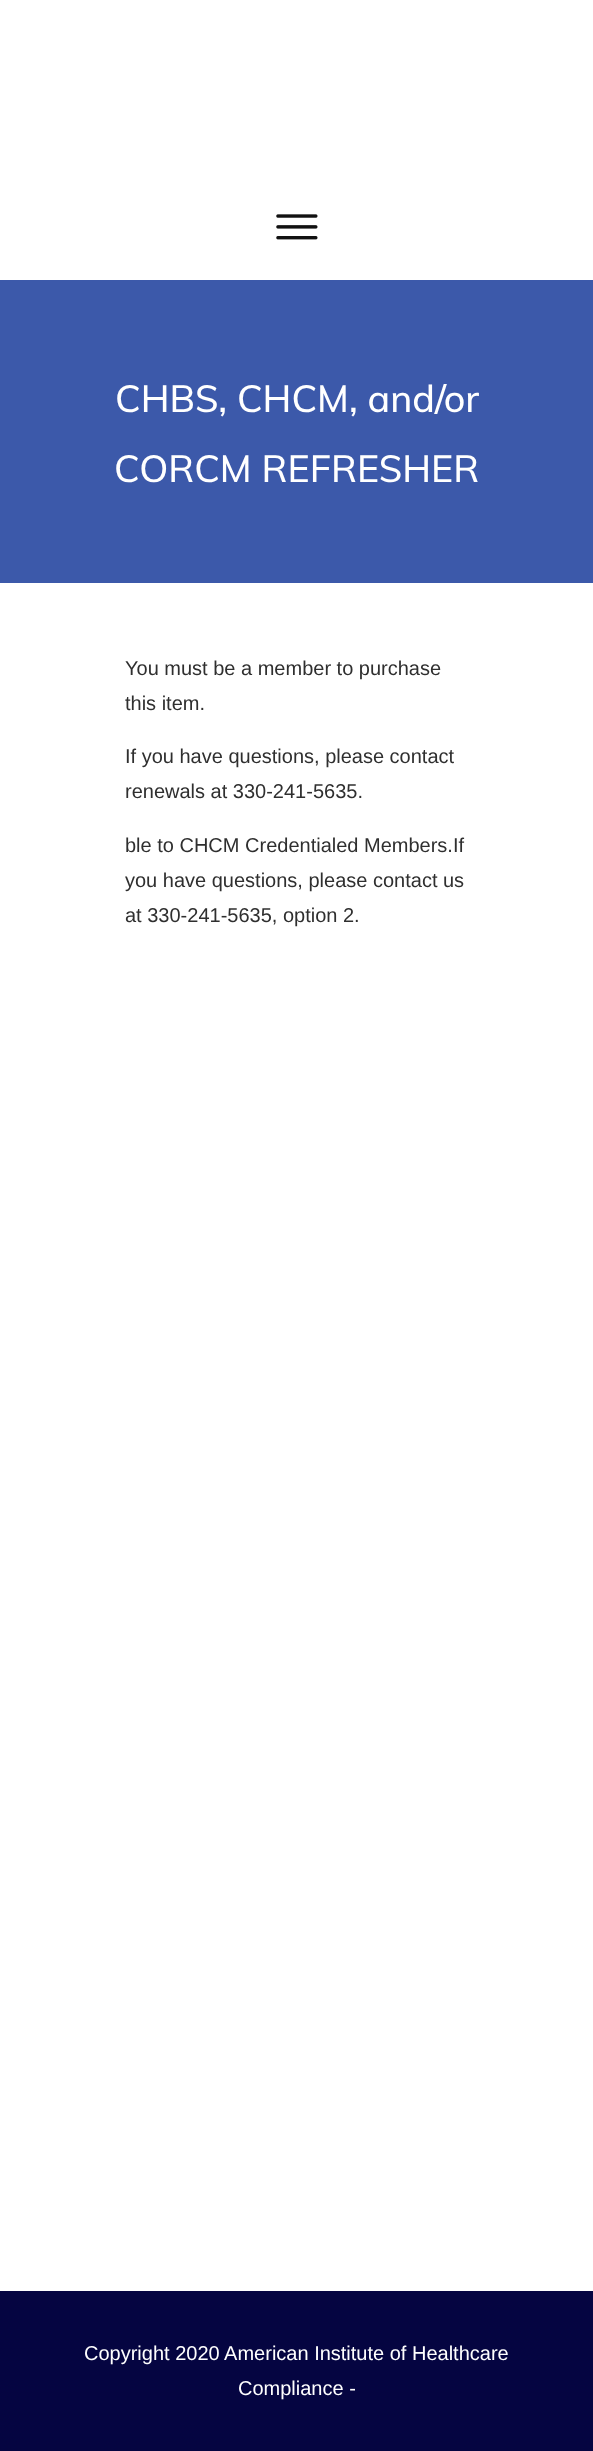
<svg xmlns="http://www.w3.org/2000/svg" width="593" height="2451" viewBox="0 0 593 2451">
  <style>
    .t1 { font: 500 37.5px Muli; fill: #fff; }
    .t2 { font: 20px Liberation Sans; fill: #2f2f2f; }
    .t3 { font: 20px Liberation Sans; fill: #fff; }
  </style>
  <rect width="100%" height="100%" fill="#fff"/>
  <image x="276" y="214" width="42" height="26" href="images/1.png"/>
  <rect x="0" y="280" width="593" height="303" fill="#3c59aa"/>
  <text x="115" y="412" class="t1">CHBS, CHCM, and/or</text>
  <text x="114" y="482" class="t1">CORCM REFRESHER</text>
  <text x="125" y="675" class="t2">You must be a member to purchase</text>
  <text x="125" y="710" class="t2">this item.</text>
  <text x="125" y="763" class="t2">If you have questions, please contact</text>
  <text x="125" y="798" class="t2">renewals at 330-241-5635.</text>
  <text x="125" y="852" class="t2">ble to CHCM Credentialed Members.If</text>
  <text x="125" y="887" class="t2">you have questions, please contact us</text>
  <text x="125" y="922" class="t2">at 330-241-5635, option 2.</text>
  <rect x="0" y="2291" width="593" height="160" fill="#050541"/>
  <text x="84" y="2360" class="t3">Copyright 2020 American Institute of Healthcare</text>
  <text x="238" y="2395" class="t3">Compliance -</text>
</svg>
